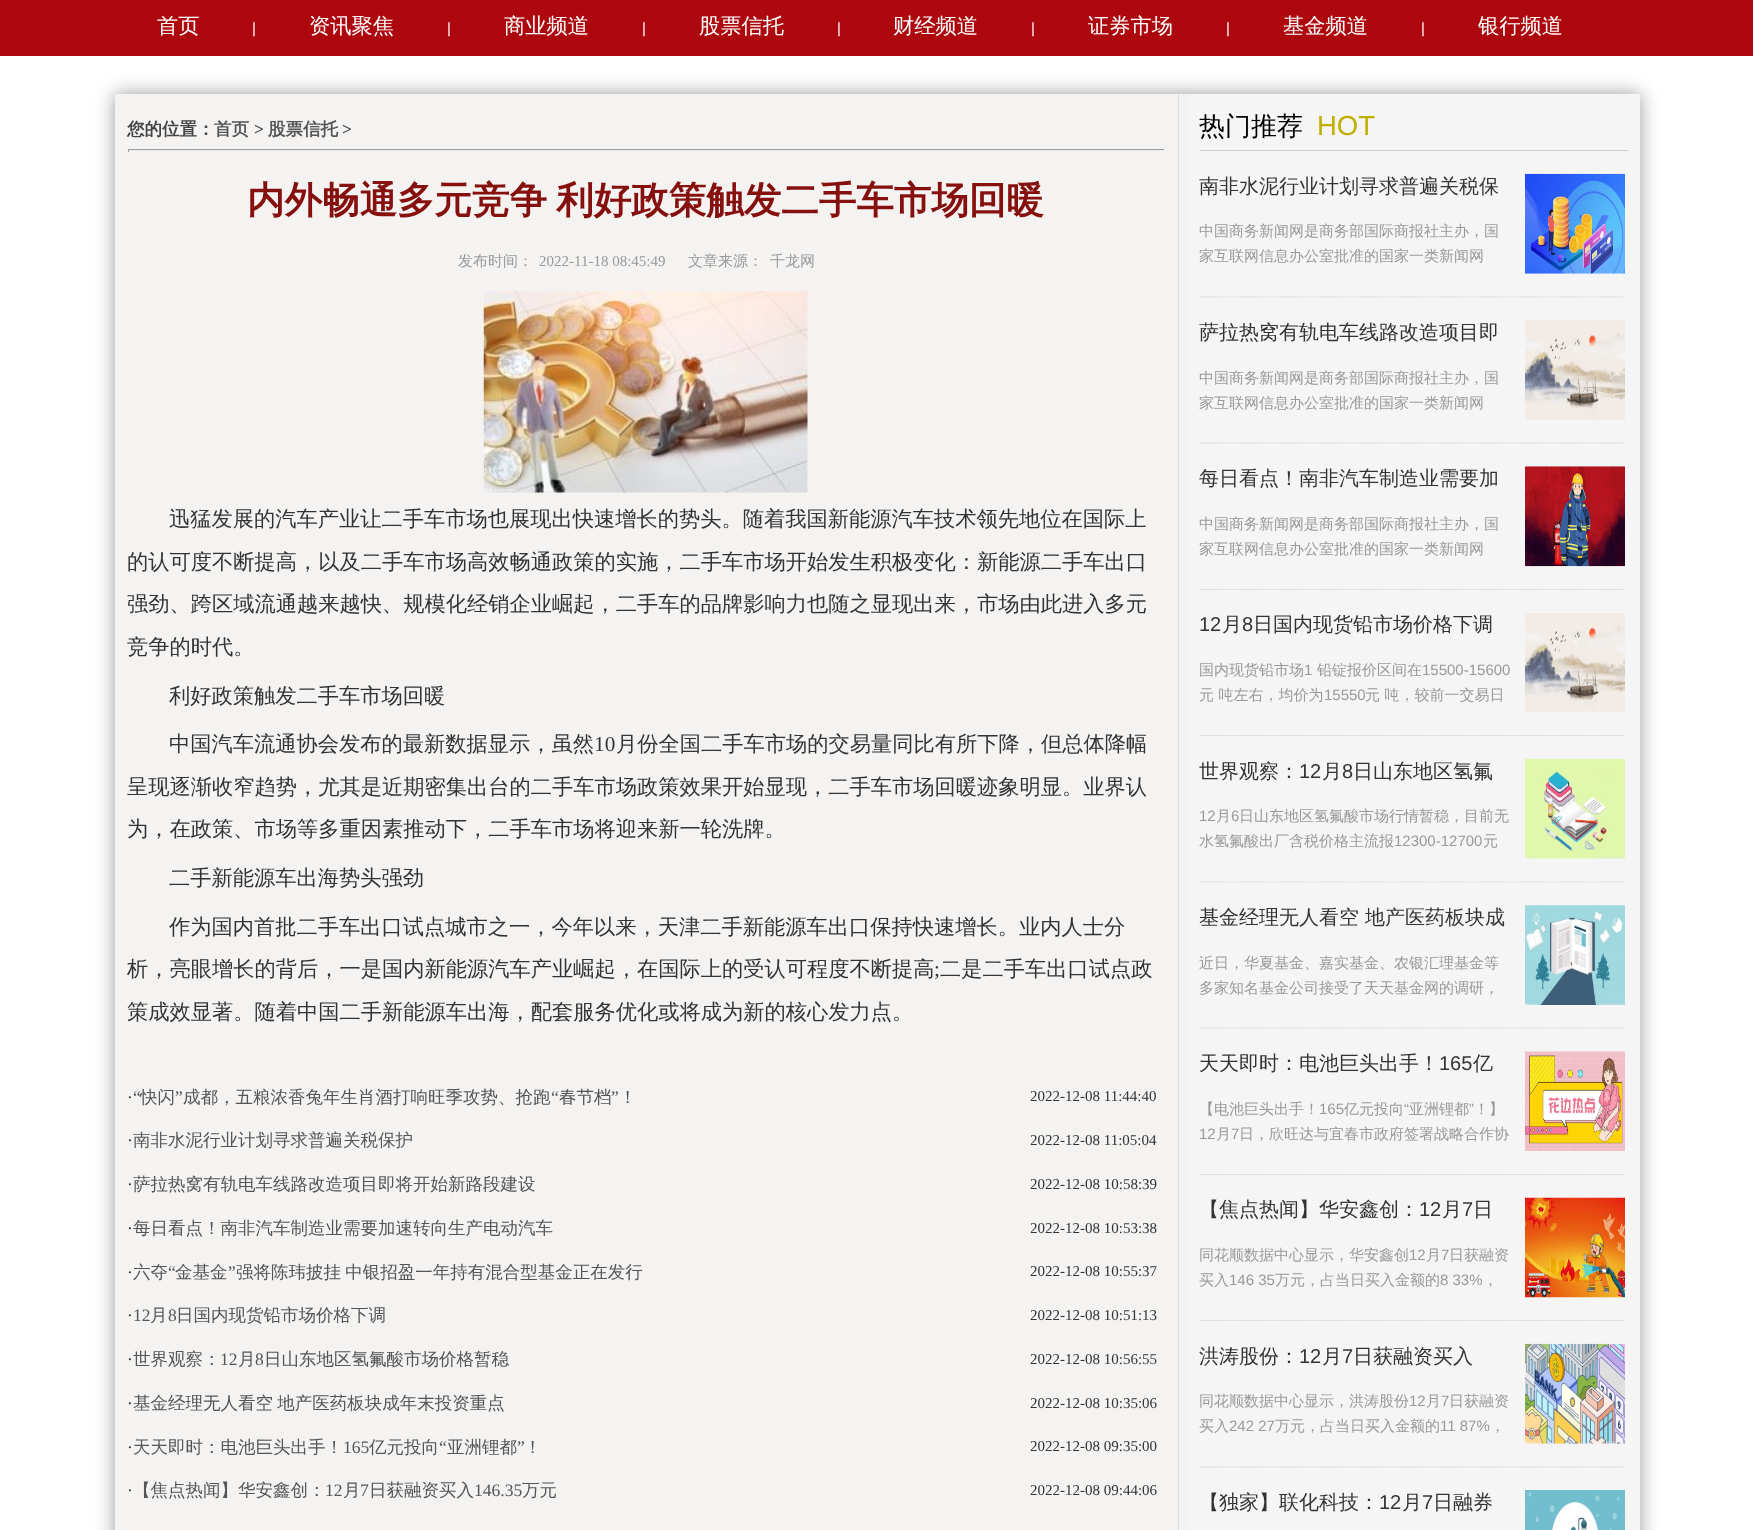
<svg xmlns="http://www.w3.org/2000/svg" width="1753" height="1530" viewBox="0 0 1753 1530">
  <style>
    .t1 { font: 500 21.25px WenQuanYi Zen Hei; fill: #fff; }
    .t2 { font: 15px Liberation Sans; fill: #fff; }
    .t3 { font: bold 17.5px WenQuanYi Zen Hei; fill: #444; }
    .t4 { font: bold 17.5px WenQuanYi Zen Hei; fill: #555; }
    .t5 { font: bold 17.5px Liberation Serif; fill: #444; }
    .t6 { font: bold 37.5px WenQuanYi Zen Hei; fill: #86100d; }
    .t7 { font: 500 15px WenQuanYi Zen Hei; fill: #999; }
    .t8 { font: 15px Liberation Serif; fill: #999; }
    .t9 { font: 500 21.25px WenQuanYi Zen Hei; fill: #333; }
    .t10 { font: 21.25px Liberation Serif; fill: #333; }
    .t11 { font: 17.5px Liberation Serif; fill: #333; }
    .t12 { font: 17.5px Liberation Serif; fill: #555; }
    .t13 { font: 500 17.5px WenQuanYi Zen Hei; fill: #555; }
    .t14 { font: 15px Liberation Serif; fill: #333; }
    .t15 { font: 500 26px WenQuanYi Zen Hei; fill: #000; }
    .t16 { font: 27.5px Liberation Sans; fill: #c0af01; }
    .t17 { font: 500 20px WenQuanYi Zen Hei; fill: #333; }
    .t18 { font: 20px Liberation Sans; fill: #333; }
    .t19 { font: 15px Liberation Sans; fill: #999; }
  </style>
  <rect width="100%" height="100%" fill="#fff"/>
  <rect x="0" y="0" width="1753" height="56" fill="#ad080e"/>
  <text x="157" y="33" class="t1">首页</text>
  <text x="252" y="33" class="t2">|</text>
  <text x="309" y="33" class="t1">资讯聚焦</text>
  <text x="447" y="33" class="t2">|</text>
  <text x="504" y="33" class="t1">商业频道</text>
  <text x="642" y="33" class="t2">|</text>
  <text x="699" y="33" class="t1">股票信托</text>
  <text x="837" y="33" class="t2">|</text>
  <text x="893" y="33" class="t1">财经频道</text>
  <text x="1031" y="33" class="t2">|</text>
  <text x="1088" y="33" class="t1">证券市场</text>
  <text x="1226" y="33" class="t2">|</text>
  <text x="1283" y="33" class="t1">基金频道</text>
  <text x="1421" y="33" class="t2">|</text>
  <text x="1478" y="33" class="t1">银行频道</text>
  <rect x="115" y="94" width="1525" height="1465" fill="#00000066" filter="blur(9.5px)"/>
  <rect x="115" y="94" width="1073" height="1436" fill="#f4f3f2"/>
  <rect x="1178" y="94" width="1" height="1436" fill="#dedede"/>
  <text x="127" y="135" class="t3">您的位置：</text>
  <text x="214" y="135" class="t4">首页</text>
  <text x="254" y="135" class="t5">&gt;</text>
  <text x="268" y="135" class="t4">股票信托</text>
  <text x="342" y="135" class="t5">&gt;</text>
  <rect x="128" y="149" width="1037" height="1" fill="#9f9f9f"/>
  <rect x="1164" y="149" width="1" height="3" fill="#eee"/>
  <rect x="128" y="150" width="1037" height="1" fill="#eee"/>
  <rect x="128" y="149" width="1" height="3" fill="#9f9f9f"/>
  <text x="247" y="213" word-spacing="-2" class="t6">内外畅通多元竞争 利好政策触发二手车市场回暖</text>
  <text x="458" y="266" class="t7">发布时间：</text>
  <text x="539" y="266" class="t8">2022-11-18 08:45:49</text>
  <text x="688" y="266" class="t7">文章来源：</text>
  <text x="770" y="266" class="t7">千龙网</text>
  <image x="483" y="291" width="325" height="202" href="images/1.png"/>
  <text x="169" y="526" class="t9">迅猛发展的汽车产业让二手车市场也展现出快速增长的势头。随着我国新能源汽车技术领先地位在国际上</text>
  <text x="127" y="569" class="t9">的认可度不断提高，以及二手车市场高效畅通政策的实施，二手车市场开始发生积极变化：新能源二手车出口</text>
  <text x="127" y="611" class="t9">强劲、跨区域流通越来越快、规模化经销企业崛起，二手车的品牌影响力也随之显现出来，市场由此进入多元</text>
  <text x="127" y="654" class="t9">竞争的时代。</text>
  <text x="169" y="703" class="t9">利好政策触发二手车市场回暖</text>
  <text x="169" y="751" class="t9">中国汽车流通协会发布的最新数据显示，虽然</text>
  <text x="594" y="751" class="t10">10</text>
  <text x="616" y="751" class="t9">月份全国二手车市场的交易量同比有所下降，但总体降幅</text>
  <text x="127" y="794" class="t9">呈现逐渐收窄趋势，尤其是近期密集出台的二手车市场政策效果开始显现，二手车市场回暖迹象明显。业界认</text>
  <text x="127" y="836" class="t9">为，在政策、市场等多重因素推动下，二手车市场将迎来新一轮洗牌。</text>
  <text x="169" y="885" class="t9">二手新能源车出海势头强劲</text>
  <text x="169" y="934" class="t9">作为国内首批二手车出口试点城市之一，今年以来，天津二手新能源车出口保持快速增长。业内人士分</text>
  <text x="127" y="976" class="t9">析，亮眼增长的背后，一是国内新能源汽车产业崛起，在国际上的受认可程度不断提高</text>
  <text x="934" y="976" class="t10">;</text>
  <text x="940" y="976" class="t9">二是二手车出口试点政</text>
  <text x="127" y="1019" class="t9">策成效显著。随着中国二手新能源车出海，配套服务优化或将成为新的核心发力点。</text>
  <text x="127" y="1103" class="t11">·</text>
  <text x="133" y="1103" class="t12">“</text>
  <text x="140" y="1103" class="t13">快闪</text>
  <text x="175" y="1103" class="t12">”</text>
  <text x="183" y="1103" class="t13">成都，五粮浓香兔年生肖酒打响旺季攻势、抢跑</text>
  <text x="551" y="1103" class="t12">“</text>
  <text x="559" y="1103" class="t13">春节档</text>
  <text x="611" y="1103" class="t12">”</text>
  <text x="619" y="1103" class="t13">！</text>
  <text x="1030" y="1101" class="t14">2022-12-08 11:44:40</text>
  <text x="127" y="1146" class="t11">·</text>
  <text x="133" y="1146" class="t13">南非水泥行业计划寻求普遍关税保护</text>
  <text x="1030" y="1145" class="t14">2022-12-08 11:05:04</text>
  <text x="127" y="1190" class="t11">·</text>
  <text x="133" y="1190" class="t13">萨拉热窝有轨电车线路改造项目即将开始新路段建设</text>
  <text x="1030" y="1189" class="t14">2022-12-08 10:58:39</text>
  <text x="127" y="1234" class="t11">·</text>
  <text x="133" y="1234" class="t13">每日看点！南非汽车制造业需要加速转向生产电动汽车</text>
  <text x="1030" y="1233" class="t14">2022-12-08 10:53:38</text>
  <text x="127" y="1278" class="t11">·</text>
  <text x="133" y="1278" class="t13">六夺</text>
  <text x="168" y="1278" class="t12">“</text>
  <text x="175" y="1278" class="t13">金基金</text>
  <text x="228" y="1278" class="t12">”</text>
  <text x="236" y="1278" word-spacing="-1" class="t13">强将陈玮披挂 中银招盈一年持有混合型基金正在发行</text>
  <text x="1030" y="1276" class="t14">2022-12-08 10:55:37</text>
  <text x="127" y="1321" class="t11">·</text>
  <text x="133" y="1321" class="t12">12</text>
  <text x="150" y="1321" class="t13">月</text>
  <text x="168" y="1321" class="t12">8</text>
  <text x="176" y="1321" class="t13">日国内现货铅市场价格下调</text>
  <text x="1030" y="1320" class="t14">2022-12-08 10:51:13</text>
  <text x="127" y="1365" class="t11">·</text>
  <text x="133" y="1365" class="t13">世界观察：</text>
  <text x="220" y="1365" class="t12">12</text>
  <text x="238" y="1365" class="t13">月</text>
  <text x="255" y="1365" class="t12">8</text>
  <text x="264" y="1365" class="t13">日山东地区氢氟酸市场价格暂稳</text>
  <text x="1030" y="1364" class="t14">2022-12-08 10:56:55</text>
  <text x="127" y="1409" class="t11">·</text>
  <text x="133" y="1409" word-spacing="-1" class="t13">基金经理无人看空 地产医药板块成年末投资重点</text>
  <text x="1030" y="1408" class="t14">2022-12-08 10:35:06</text>
  <text x="127" y="1453" class="t11">·</text>
  <text x="133" y="1453" class="t13">天天即时：电池巨头出手！</text>
  <text x="343" y="1453" class="t12">165</text>
  <text x="369" y="1453" class="t13">亿元投向</text>
  <text x="439" y="1453" class="t12">“</text>
  <text x="447" y="1453" class="t13">亚洲锂都</text>
  <text x="517" y="1453" class="t12">”</text>
  <text x="524" y="1453" class="t13">！</text>
  <text x="1030" y="1451" class="t14">2022-12-08 09:35:00</text>
  <text x="127" y="1496" class="t11">·</text>
  <text x="133" y="1496" class="t13">【焦点热闻】华安鑫创：</text>
  <text x="325" y="1496" class="t12">12</text>
  <text x="343" y="1496" class="t13">月</text>
  <text x="360" y="1496" class="t12">7</text>
  <text x="369" y="1496" class="t13">日获融资买入</text>
  <text x="474" y="1496" class="t12">146.35</text>
  <text x="522" y="1496" class="t13">万元</text>
  <text x="1030" y="1495" class="t14">2022-12-08 09:44:06</text>
  <rect x="1188" y="94" width="452" height="1436" fill="#f5f5f5"/>
  <rect x="1200" y="150" width="428" height="1" fill="#ccc"/>
  <text x="1199" y="135" class="t15">热门推荐</text>
  <text x="1317" y="135" class="t16">HOT</text>
  <path d="M1200 297H1625" fill="none" stroke="#ccc" stroke-width="1.2" stroke-dasharray="1.25 1.25"/>
  <text x="1199" y="193" class="t17">南非水泥行业计划寻求普遍关税保</text>
  <image x="1525" y="173" width="100" height="101" href="images/2.png"/>
  <text x="1199" y="236" class="t7">中国商务新闻网是商务部国际商报社主办，国</text>
  <text x="1199" y="261" class="t7">家互联网信息办公室批准的国家一类新闻网</text>
  <path d="M1200 443H1625" fill="none" stroke="#ccc" stroke-width="1.2" stroke-dasharray="1.25 1.25"/>
  <text x="1199" y="339" class="t17">萨拉热窝有轨电车线路改造项目即</text>
  <image x="1525" y="320" width="100" height="100" href="images/3.png"/>
  <text x="1199" y="383" class="t7">中国商务新闻网是商务部国际商报社主办，国</text>
  <text x="1199" y="408" class="t7">家互联网信息办公室批准的国家一类新闻网</text>
  <path d="M1200 589.5H1625" fill="none" stroke="#ccc" stroke-width="1.2" stroke-dasharray="1.25 1.25"/>
  <text x="1199" y="485" class="t17">每日看点！南非汽车制造业需要加</text>
  <image x="1525" y="466" width="100" height="101" href="images/4.png"/>
  <text x="1199" y="529" class="t7">中国商务新闻网是商务部国际商报社主办，国</text>
  <text x="1199" y="554" class="t7">家互联网信息办公室批准的国家一类新闻网</text>
  <path d="M1200 735.5H1625" fill="none" stroke="#ccc" stroke-width="1.2" stroke-dasharray="1.25 1.25"/>
  <text x="1199" y="631" class="t18">12</text>
  <text x="1222" y="631" class="t17">月</text>
  <text x="1242" y="631" class="t18">8</text>
  <text x="1253" y="631" class="t17">日国内现货铅市场价格下调</text>
  <image x="1525" y="613" width="100" height="100" href="images/5.png"/>
  <text x="1199" y="675" class="t7">国内现货铅市场</text>
  <text x="1304" y="675" class="t19">1</text>
  <text x="1317" y="675" class="t7">铅锭报价区间在</text>
  <text x="1422" y="675" class="t19">15500-15600</text>
  <text x="1199" y="700" class="t7">元 吨左右，均价为</text>
  <text x="1324" y="700" class="t19">15550</text>
  <text x="1365" y="700" class="t7">元 吨，较前一交易日</text>
  <path d="M1200 882H1625" fill="none" stroke="#ccc" stroke-width="1.2" stroke-dasharray="1.25 1.25"/>
  <text x="1199" y="778" class="t17">世界观察：</text>
  <text x="1299" y="778" class="t18">12</text>
  <text x="1322" y="778" class="t17">月</text>
  <text x="1342" y="778" class="t18">8</text>
  <text x="1353" y="778" class="t17">日山东地区氢氟</text>
  <image x="1525" y="758" width="100" height="101" href="images/6.png"/>
  <text x="1199" y="821" class="t19">12</text>
  <text x="1216" y="821" class="t7">月</text>
  <text x="1231" y="821" class="t19">6</text>
  <text x="1239" y="821" class="t7">日山东地区氢氟酸市场行情暂稳，目前无</text>
  <text x="1199" y="846" class="t7">水氢氟酸出厂含税价格主流报</text>
  <text x="1394" y="846" class="t19">12300-12700</text>
  <text x="1483" y="846" class="t7">元</text>
  <path d="M1200 1028H1625" fill="none" stroke="#ccc" stroke-width="1.2" stroke-dasharray="1.25 1.25"/>
  <text x="1199" y="924" class="t17">基金经理无人看空 地产医药板块成</text>
  <image x="1525" y="905" width="100" height="100" href="images/7.png"/>
  <text x="1199" y="968" class="t7">近日，华夏基金、嘉实基金、农银汇理基金等</text>
  <text x="1199" y="993" class="t7">多家知名基金公司接受了天天基金网的调研，</text>
  <path d="M1200 1174.5H1625" fill="none" stroke="#ccc" stroke-width="1.2" stroke-dasharray="1.25 1.25"/>
  <text x="1199" y="1070" class="t17">天天即时：电池巨头出手！</text>
  <text x="1439" y="1070" class="t18">165</text>
  <text x="1473" y="1070" class="t17">亿</text>
  <image x="1525" y="1051" width="100" height="100" href="images/8.png"/>
  <text x="1199" y="1114" class="t7">【电池巨头出手！</text>
  <text x="1319" y="1114" class="t19">165</text>
  <text x="1344" y="1114" class="t7">亿元投向</text>
  <text x="1404" y="1114" class="t19">“</text>
  <text x="1409" y="1114" class="t7">亚洲锂都</text>
  <text x="1469" y="1114" class="t19">”</text>
  <text x="1474" y="1114" class="t7">！】</text>
  <text x="1199" y="1139" class="t19">12</text>
  <text x="1216" y="1139" class="t7">月</text>
  <text x="1231" y="1139" class="t19">7</text>
  <text x="1239" y="1139" class="t7">日，欣旺达与宜春市政府签署战略合作协</text>
  <path d="M1200 1320.5H1625" fill="none" stroke="#ccc" stroke-width="1.2" stroke-dasharray="1.25 1.25"/>
  <text x="1199" y="1216" class="t17">【焦点热闻】华安鑫创：</text>
  <text x="1419" y="1216" class="t18">12</text>
  <text x="1442" y="1216" class="t17">月</text>
  <text x="1462" y="1216" class="t18">7</text>
  <text x="1473" y="1216" class="t17">日</text>
  <image x="1525" y="1197" width="100" height="101" href="images/9.png"/>
  <text x="1199" y="1260" class="t7">同花顺数据中心显示，华安鑫创</text>
  <text x="1409" y="1260" class="t19">12</text>
  <text x="1426" y="1260" class="t7">月</text>
  <text x="1441" y="1260" class="t19">7</text>
  <text x="1449" y="1260" class="t7">日获融资</text>
  <text x="1199" y="1285" class="t7">买入</text>
  <text x="1229" y="1285" class="t19">146 35</text>
  <text x="1275" y="1285" class="t7">万元，占当日买入金额的</text>
  <text x="1440" y="1285" class="t19">8 33%</text>
  <text x="1483" y="1285" class="t7">，</text>
  <path d="M1200 1467H1625" fill="none" stroke="#ccc" stroke-width="1.2" stroke-dasharray="1.25 1.25"/>
  <text x="1199" y="1363" class="t17">洪涛股份：</text>
  <text x="1299" y="1363" class="t18">12</text>
  <text x="1322" y="1363" class="t17">月</text>
  <text x="1342" y="1363" class="t18">7</text>
  <text x="1353" y="1363" class="t17">日获融资买入</text>
  <image x="1525" y="1343" width="100" height="101" href="images/10.png"/>
  <text x="1199" y="1406" class="t7">同花顺数据中心显示，洪涛股份</text>
  <text x="1409" y="1406" class="t19">12</text>
  <text x="1426" y="1406" class="t7">月</text>
  <text x="1441" y="1406" class="t19">7</text>
  <text x="1449" y="1406" class="t7">日获融资</text>
  <text x="1199" y="1431" class="t7">买入</text>
  <text x="1229" y="1431" class="t19">242 27</text>
  <text x="1275" y="1431" class="t7">万元，占当日买入金额的</text>
  <text x="1440" y="1431" class="t19">11 87%</text>
  <text x="1490" y="1431" class="t7">，</text>
  <text x="1199" y="1509" class="t17">【独家】联化科技：</text>
  <text x="1379" y="1509" class="t18">12</text>
  <text x="1402" y="1509" class="t17">月</text>
  <text x="1422" y="1509" class="t18">7</text>
  <text x="1433" y="1509" class="t17">日融券</text>
  <image x="1525" y="1490" width="100" height="40" href="images/11.png"/>
</svg>
